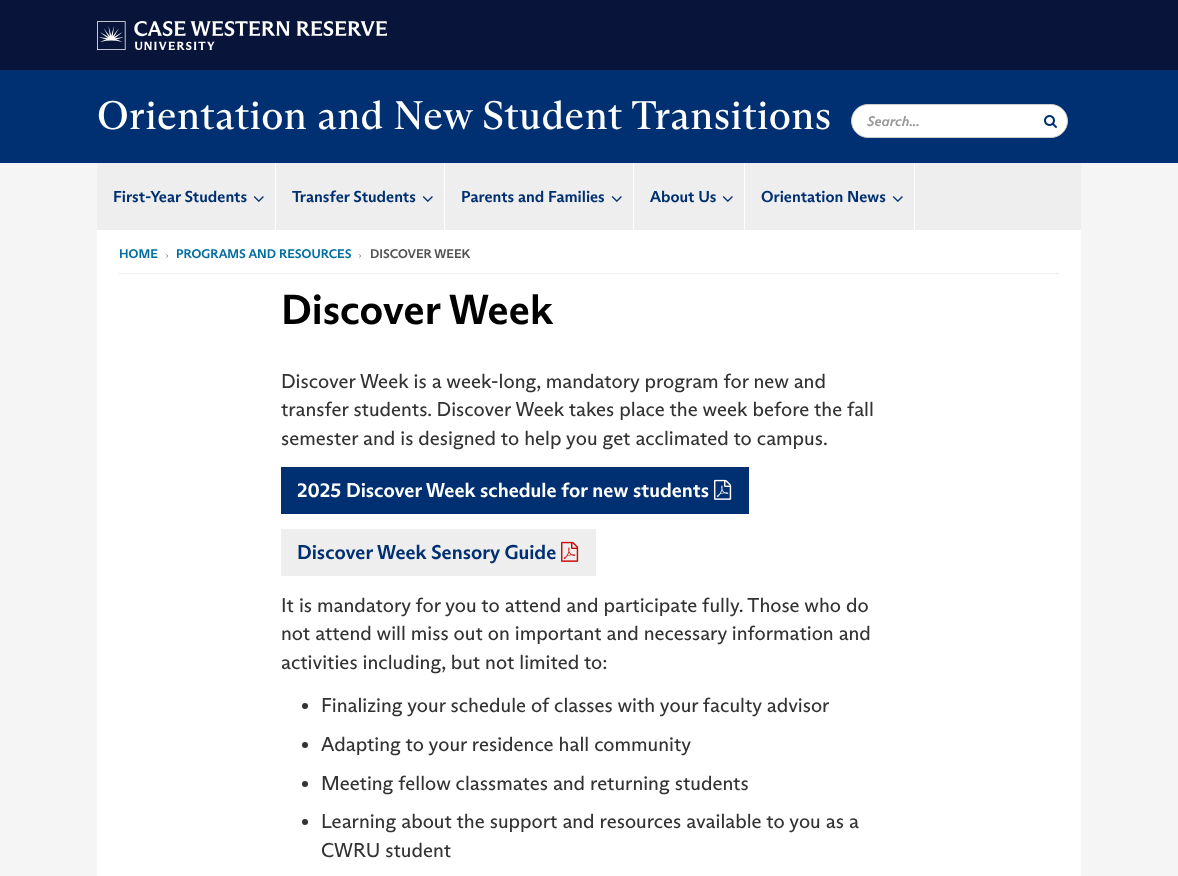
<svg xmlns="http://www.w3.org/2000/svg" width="1178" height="876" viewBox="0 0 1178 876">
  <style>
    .t1 { font: 40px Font; letter-spacing: 0.4px; fill: #fff; }
    .t2 { font: italic bold 14px Font; fill: #999; }
    .t3 { font: bold 16px Font; fill: #003071; }
    .t4 { font: bold 12.6px Font; fill: #006da3; }
    .t5 { font: bold 12.6px Font; fill: #535353; }
    .t6 { font: bold 42px Font; fill: #000; }
    .t7 { font: 20px 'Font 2'; fill: #333; }
    .t8 { font: bold 20px Font; fill: #fff; }
    .t9 { font: bold 20px Font; fill: #003071; }
  </style>
  <rect width="100%" height="100%" fill="#f5f5f5"/>
  <rect x="0" y="0" width="1178" height="70" fill="#09143a"/>
  <image x="97" y="21" width="290" height="29" href="images/1.png"/>
  <rect x="0" y="70" width="1178" height="93" fill="#003071"/>
  <text x="97" y="129" class="t1">Orientation and New Student Transitions</text>
  <rect x="851.5" y="104.5" width="216" height="33" rx="16.5" fill="#fff" stroke="#ccc"/>
  <text x="867" y="126" class="t2">Search...</text>
  <image x="1044" y="115" width="13" height="13" href="images/2.png"/>
  <rect x="97" y="163" width="984" height="67" fill="#eee"/>
  <rect x="275" y="163" width="1" height="67" fill="#fff"/>
  <text x="113" y="202" class="t3">First-Year Students</text>
  <image x="253" y="196" width="11" height="6" href="images/3.png"/>
  <rect x="444" y="163" width="1" height="67" fill="#fff"/>
  <text x="292" y="202" class="t3">Transfer Students</text>
  <image x="422" y="196" width="11" height="6" href="images/3.png"/>
  <rect x="633" y="163" width="1" height="67" fill="#fff"/>
  <text x="461" y="202" class="t3">Parents and Families</text>
  <image x="611" y="196" width="11" height="6" href="images/3.png"/>
  <rect x="744" y="163" width="1" height="67" fill="#fff"/>
  <text x="650" y="202" class="t3">About Us</text>
  <image x="722" y="196" width="11" height="6" href="images/3.png"/>
  <rect x="914" y="163" width="1" height="67" fill="#fff"/>
  <text x="761" y="202" class="t3">Orientation News</text>
  <image x="892" y="196" width="11" height="6" href="images/3.png"/>
  <rect x="97" y="230" width="984" height="646" fill="#fff"/>
  <rect x="119" y="273" width="940" height="1" fill="#eee"/>
  <text x="119" y="258" class="t4">HOME</text>
  <image x="166" y="254" width="2" height="4" href="images/4.png"/>
  <text x="176" y="258" class="t4">PROGRAMS AND RESOURCES</text>
  <image x="359" y="254" width="2" height="4" href="images/4.png"/>
  <text x="370" y="258" class="t5">DISCOVER WEEK</text>
  <text x="281" y="324" class="t6">Discover Week</text>
  <text x="281" y="388" class="t7">Discover Week is a week-long, mandatory program for new and</text>
  <text x="281" y="416" class="t7">transfer students. Discover Week takes place the week before the fall</text>
  <text x="281" y="445" class="t7">semester and is designed to help you get acclimated to campus.</text>
  <rect x="281" y="467" width="468" height="47" fill="#003071"/>
  <text x="297" y="497" class="t8">2025 Discover Week schedule for new students</text>
  <image x="714" y="479" width="18" height="21" href="images/5.png"/>
  <rect x="281" y="529" width="315" height="47" fill="#eee"/>
  <text x="297" y="559" class="t9">Discover Week Sensory Guide</text>
  <image x="561" y="541" width="18" height="21" href="images/6.png"/>
  <text x="281" y="612" class="t7">It is mandatory for you to attend and participate fully. Those who do</text>
  <text x="281" y="640" class="t7">not attend will miss out on important and necessary information and</text>
  <text x="281" y="669" class="t7">activities including, but not limited to:</text>
  <circle cx="305" cy="706" r="3" fill="#333"/>
  <text x="321" y="712" class="t7">Finalizing your schedule of classes with your faculty advisor</text>
  <circle cx="305" cy="745" r="3" fill="#333"/>
  <text x="321" y="751" class="t7">Adapting to your residence hall community</text>
  <circle cx="305" cy="784" r="3" fill="#333"/>
  <text x="321" y="790" class="t7">Meeting fellow classmates and returning students</text>
  <circle cx="305" cy="822" r="3" fill="#333"/>
  <text x="321" y="828" class="t7">Learning about the support and resources available to you as a</text>
  <text x="321" y="857" class="t7">CWRU student</text>
</svg>
